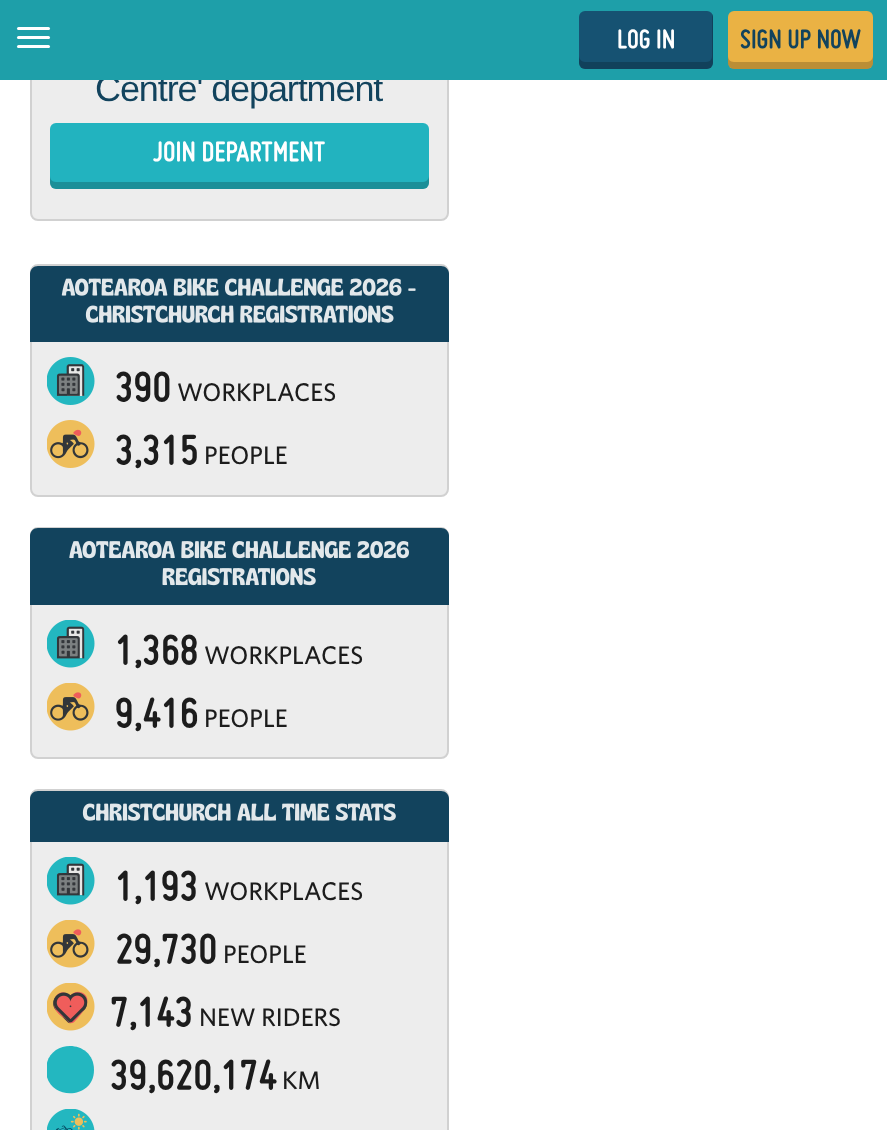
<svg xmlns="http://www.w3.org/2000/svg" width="887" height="1130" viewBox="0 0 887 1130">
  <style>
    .t1 { font: 36px Liberation Sans; letter-spacing: -1.1px; fill: #12435d; }
    .t2 { font: italic bold 28.5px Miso; fill: #fff; }
    .t3 { font: italic bold 28.5px Miso; fill: #12435d; }
    .t4 { font: italic bold 30px Miso; fill: #fff; }
    .t5 { font: italic bold 45px Miso; fill: #1c1c1c; }
    .t6 { font: 500 25.5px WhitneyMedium; fill: #1c1c1c; }
  </style>
  <defs>
    <clipPath id="clip1"><rect x="47" y="1046" width="48" height="48"/></clipPath>
  </defs>
  <rect width="100%" height="100%" fill="#fff"/>
  <rect x="31" y="15" width="417" height="205" rx="7" fill="#ededed" stroke="#d1d1d1" stroke-width="2"/>
  <text x="95" y="101" class="t1">Centre' department</text>
  <rect x="0" y="0" width="887" height="80" fill="#1e9fa9"/>
  <rect x="17" y="27" width="33" height="3" rx="1.5" fill="#fff"/>
  <rect x="17" y="36" width="33" height="3" rx="1.5" fill="#fff"/>
  <rect x="17" y="45" width="33" height="3" rx="1.5" fill="#fff"/>
  <rect x="579" y="11" width="134" height="58" rx="6" fill="#165272"/>
  <path d="M579 56V63C579 66 582 69 585 69H707C710 69 713 66 713 63V17C713 16 713 15 712 14V56C712 59 710 62 706 62H585C582 62 579 59 579 56Z" fill="#00000033"/>
  <text x="617" y="48" class="t2">LOG IN</text>
  <rect x="728" y="11" width="145" height="58" rx="6" fill="#eab244"/>
  <path d="M728 56V63C728 66 731 69 734 69H867C870 69 873 66 873 63V56C873 59 870 62 867 62H734C730 62 728 59 728 56Z" fill="#00000033"/>
  <text x="740" y="48" class="t3">SIGN UP NOW</text>
  <rect x="50" y="123" width="379" height="66" rx="6" fill="#22b3bf"/>
  <path d="M50 176V183C50 186 53 189 56 189H423C426 189 429 186 429 183V176C429 179 426 182 423 182H56C52 182 50 179 50 176Z" fill="#00000033"/>
  <text x="153" y="161" class="t4">JOIN DEPARTMENT</text>
  <rect x="31" y="265" width="417" height="231" rx="7" fill="#ededed" stroke="#d1d1d1" stroke-width="2"/>
  <path d="M38 266H441C445.5 266 449 269.5 449 274V342H30V274C30 269.5 33.5 266 38 266Z" fill="#12435d"/>
  <image x="61" y="278" width="355" height="18" href="images/1.png"/>
  <image x="85" y="305" width="309" height="18" href="images/2.png"/>
  <image x="47" y="357" width="48" height="48" href="images/3.png"/>
  <text x="115" y="401" class="t5">390</text>
  <text x="177" y="401" class="t6">WORKPLACES</text>
  <image x="47" y="420" width="48" height="48" href="images/4.png"/>
  <text x="115" y="464" class="t5">3,315</text>
  <text x="204" y="464" class="t6">PEOPLE</text>
  <rect x="31" y="528" width="417" height="230" rx="7" fill="#ededed" stroke="#d1d1d1" stroke-width="2"/>
  <path d="M38 528H441C445.5 528 449 531.5 449 536V605H30V536C30 531.5 33.5 528 38 528Z" fill="#12435d"/>
  <image x="69" y="541" width="340" height="18" href="images/5.png"/>
  <image x="162" y="568" width="154" height="18" href="images/6.png"/>
  <image x="47" y="620" width="48" height="48" href="images/7.png"/>
  <text x="115" y="664" class="t5">1,368</text>
  <text x="204" y="664" class="t6">WORKPLACES</text>
  <image x="47" y="683" width="48" height="48" href="images/8.png"/>
  <text x="115" y="727" class="t5">9,416</text>
  <text x="204" y="727" class="t6">PEOPLE</text>
  <rect x="31" y="790" width="417" height="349" rx="7" fill="#ededed" stroke="#d1d1d1" stroke-width="2"/>
  <path d="M38 791H441C445.5 791 449 794.5 449 799V842H30V799C30 794.5 33.5 791 38 791Z" fill="#12435d"/>
  <image x="82" y="803" width="149" height="18" href="images/9.png"/>
  <image x="237" y="803" width="159" height="18" href="images/10.png"/>
  <image x="47" y="857" width="48" height="48" href="images/7.png"/>
  <text x="115" y="900" class="t5">1,193</text>
  <text x="204" y="900" class="t6">WORKPLACES</text>
  <image x="47" y="920" width="48" height="48" href="images/8.png"/>
  <text x="115" y="963" class="t5">29,730</text>
  <text x="223" y="963" class="t6">PEOPLE</text>
  <image x="47" y="983" width="48" height="48" href="images/11.png"/>
  <text x="110" y="1026" class="t5">7,143</text>
  <text x="199" y="1026" class="t6">NEW RIDERS</text>
  <g clip-path="url(#clip1)">
    <path d="M94 1070C94 1101 46 1101 46 1070C46 1038 94 1038 94 1070Z" fill="#23b7c0"/>
  </g>
  <text x="110" y="1089" class="t5">39,620,174</text>
  <text x="282" y="1089" class="t6">KM</text>
  <image x="47" y="1109" width="48" height="21" href="images/12.png"/>
</svg>
